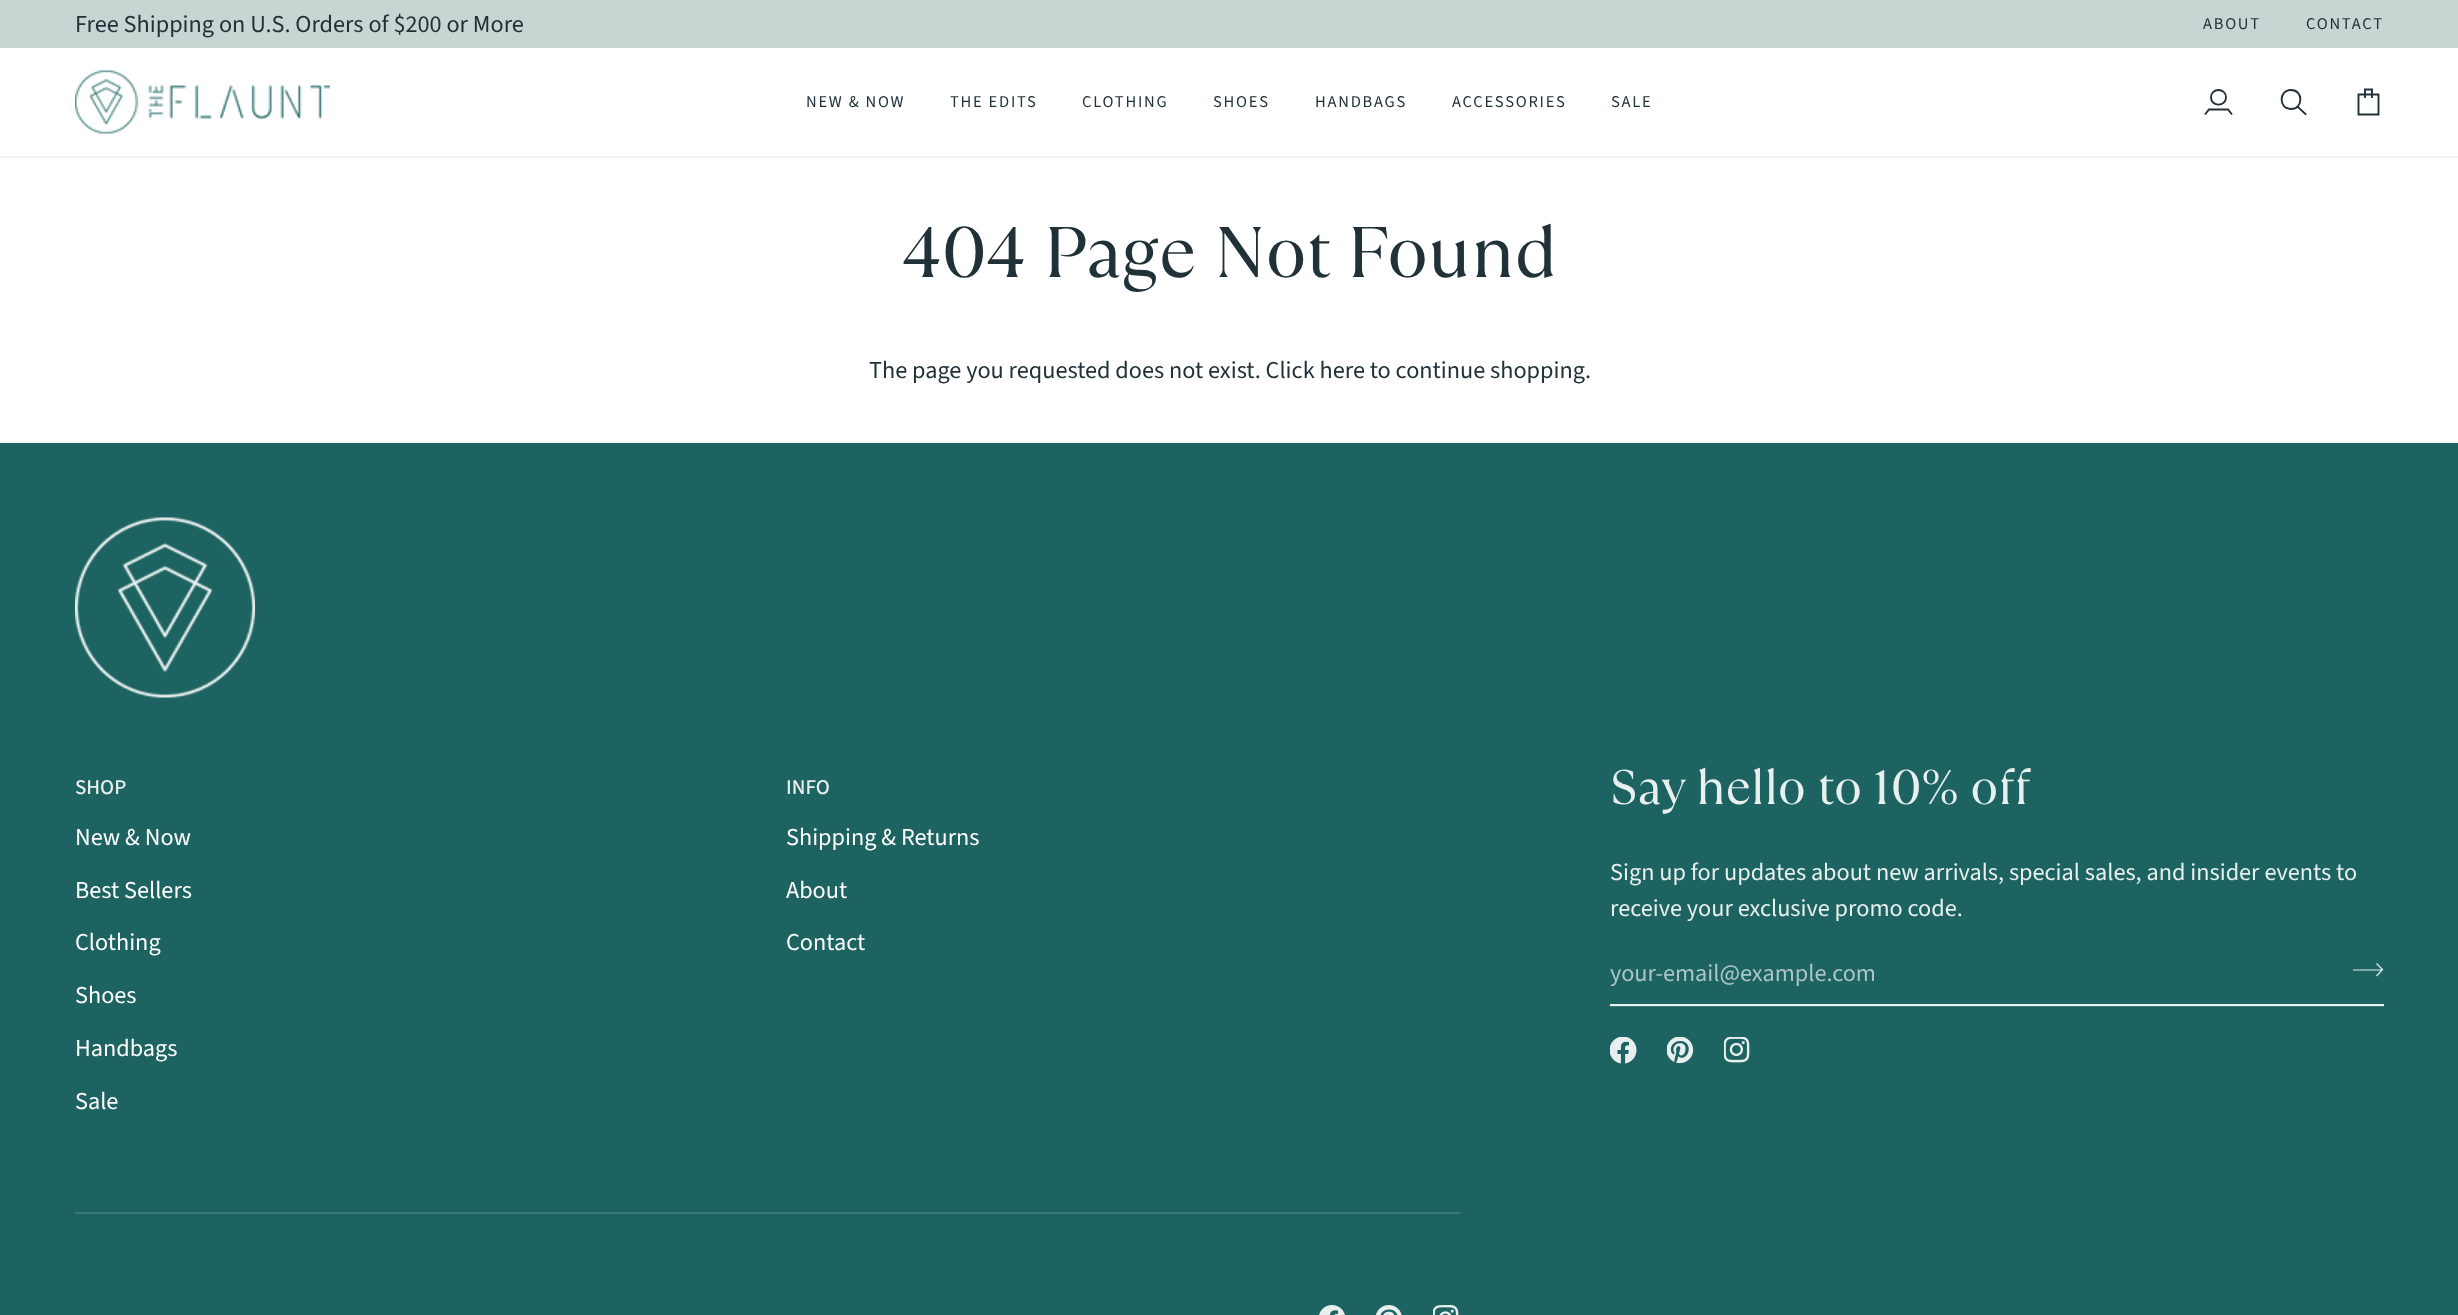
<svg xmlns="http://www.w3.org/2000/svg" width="2458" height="1315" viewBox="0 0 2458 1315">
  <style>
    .t1 { font: 24.25px Source Sans Pro; fill: #203137; }
    .t2 { font: 16.5px Source Sans Pro; letter-spacing: 1.75px; fill: #203137; }
    .t3 { font: 71.5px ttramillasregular; fill: #203137; }
    .t4 { font: 500 21px Source Sans Pro; fill: #e8efef; }
    .t5 { font: 24.25px Source Sans Pro; fill: #fff; }
    .t6 { font: 48.5px ttramillasregular; fill: #e8efef; }
    .t7 { font: 24.25px Source Sans Pro; fill: #e8efef; }
    .t8 { font: 24.25px Source Sans Pro; fill: #abc5c5; }
  </style>
  <rect width="100%" height="100%" fill="#fff"/>
  <rect x="0" y="156" width="2458" height="2" fill="#eff4f4"/>
  <rect x="0" y="0" width="2458" height="48" fill="#c7d6d3"/>
  <text x="75" y="32" class="t1">Free Shipping on U.S. Orders of $200 or More</text>
  <text x="2203" y="29" class="t2">ABOUT</text>
  <text x="2306" y="29" class="t2">CONTACT</text>
  <image x="75" y="70" width="255" height="64" href="images/1.png"/>
  <text x="806" y="107" class="t2">NEW &amp; NOW</text>
  <text x="950" y="107" class="t2">THE EDITS</text>
  <text x="1082" y="107" class="t2">CLOTHING</text>
  <text x="1213" y="107" class="t2">SHOES</text>
  <text x="1315" y="107" class="t2">HANDBAGS</text>
  <text x="1452" y="107" class="t2">ACCESSORIES</text>
  <text x="1611" y="107" class="t2">SALE</text>
  <path d="M2205 114.5L2209 109.5H2228L2232 114.5M2226 97.5C2226 107 2211 107 2211 97.5C2211 87.5 2226 87.5 2226 97.5Z" fill="none" stroke="#203137" stroke-width="1.9"/>
  <path d="M2291 109C2303.5 109 2303.5 90 2291 90C2278.5 90 2278.5 109 2291 109ZM2305.5 114L2298 107" fill="none" stroke="#203137" stroke-width="1.9" stroke-linecap="square"/>
  <path d="M2358.5 94.5H2378.5V114.5H2358.5ZM2365 98V89.5H2372V98" fill="none" stroke="#203137" stroke-width="1.9"/>
  <text x="903" y="277" class="t3">404 Page Not Found</text>
  <text x="869" y="378" class="t1">The page you requested does not exist. Click here to continue shopping.</text>
  <rect x="0" y="443" width="2458" height="872" fill="#1d6361"/>
  <rect x="1610" y="1004" width="774" height="1" fill="#e8efef"/>
  <image x="75" y="517" width="180" height="181" href="images/2.png"/>
  <text x="75" y="794" class="t4">SHOP</text>
  <text x="75" y="845" class="t5">New &amp; Now</text>
  <text x="75" y="898" class="t5">Best Sellers</text>
  <text x="75" y="950" class="t5">Clothing</text>
  <text x="75" y="1003" class="t5">Shoes</text>
  <text x="75" y="1056" class="t5">Handbags</text>
  <text x="75" y="1109" class="t5">Sale</text>
  <text x="786" y="794" class="t4">INFO</text>
  <text x="786" y="845" class="t5">Shipping &amp; Returns</text>
  <text x="786" y="898" class="t5">About</text>
  <text x="786" y="950" class="t5">Contact</text>
  <rect x="75" y="1212" width="1385" height="2" fill="#3f7a79"/>
  <image x="1319" y="1305" width="26" height="10" href="images/3.png"/>
  <image x="1376" y="1305" width="26" height="10" href="images/4.png"/>
  <image x="1433" y="1305" width="26" height="10" href="images/5.png"/>
  <text x="1610" y="804" class="t6">Say hello to 10% off</text>
  <text x="1610" y="880" class="t7">Sign up for updates about new arrivals, special sales, and insider events to</text>
  <text x="1610" y="916" class="t7">receive your exclusive promo code.</text>
  <text x="1610" y="981" class="t8">your-email@example.com</text>
  <path d="M2376.5 963.5L2382.5 969.5L2376.5 976M2353 970H2382.5" fill="none" stroke="#e8efef" stroke-width="1.2"/>
  <rect x="1610" y="1006" width="774" height="1" fill="#3f7a79"/>
  <rect x="1610" y="1005" width="774" height="1" fill="#ecf2f2"/>
  <image x="1610" y="1037" width="27" height="27" href="images/6.png"/>
  <image x="1667" y="1037" width="27" height="27" href="images/7.png"/>
  <image x="1724" y="1037" width="26" height="26" href="images/8.png"/>
</svg>
